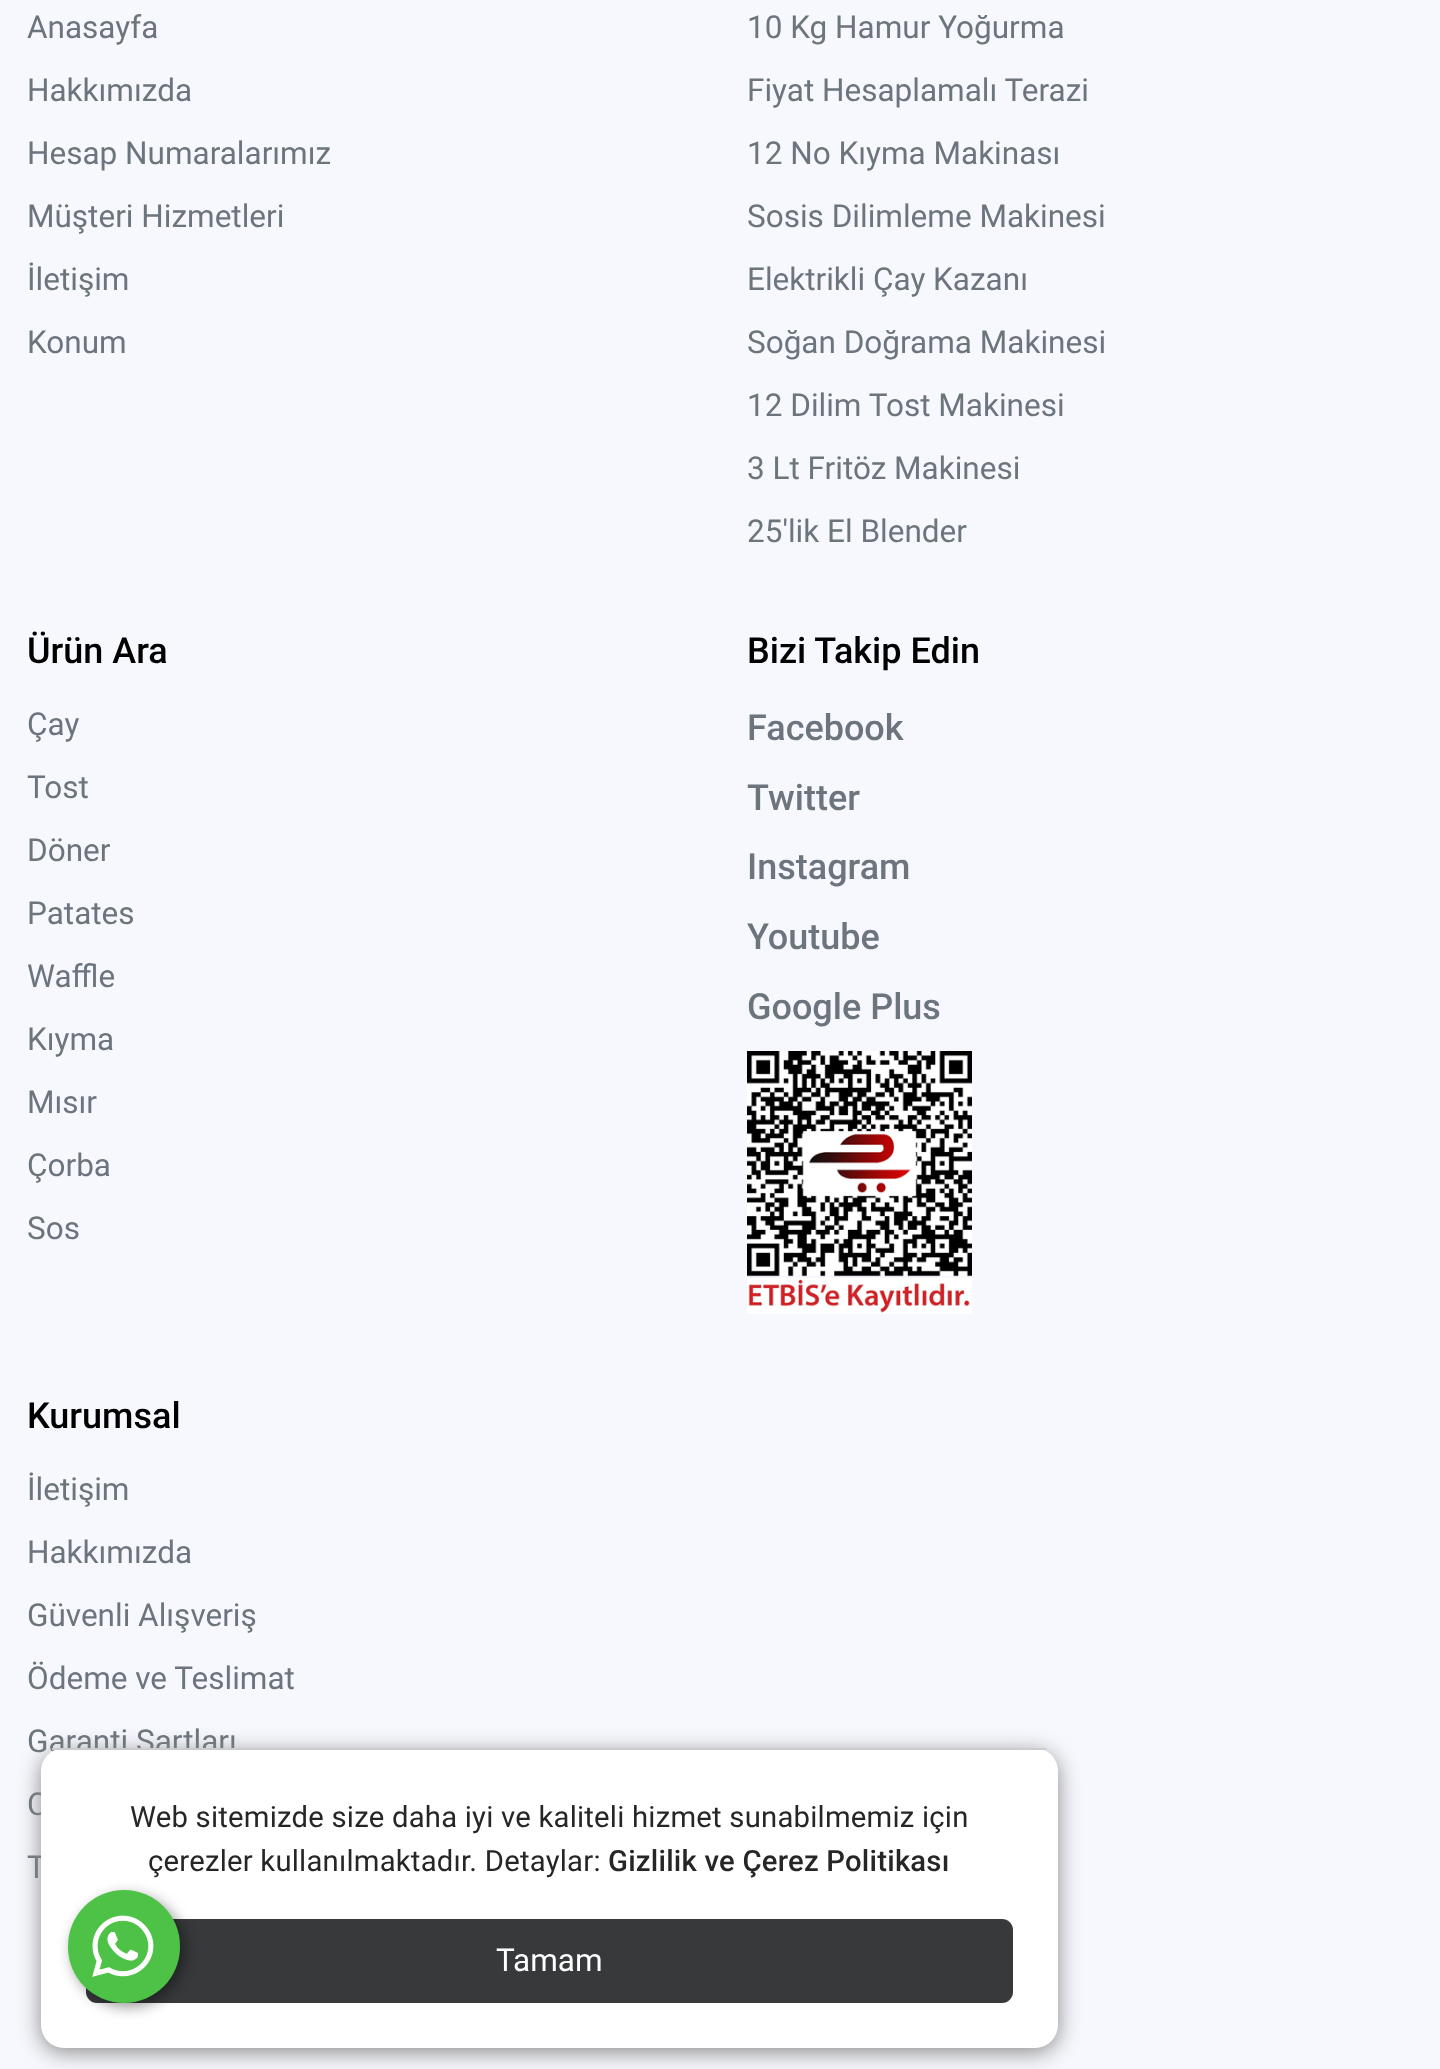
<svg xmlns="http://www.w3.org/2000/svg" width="1440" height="2069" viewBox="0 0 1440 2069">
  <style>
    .t1 { font: 31.5px Roboto; fill: #6c757d; }
    .t2 { font: 500 36px Roboto; fill: #000; }
    .t3 { font: 500 36px Roboto; fill: #6c757d; }
    .t4 { font: 29.25px Roboto; letter-spacing: 0.23px; fill: #262626; }
    .t5 { font: 500 29.25px Roboto; letter-spacing: 0.23px; fill: #262626; }
    .t6 { font: 31.5px Roboto; fill: #fff; }
  </style>
  <rect width="100%" height="100%" fill="#f7f8fd"/>
  <text x="27" y="38" class="t1">Anasayfa</text>
  <text x="27" y="101" class="t1">Hakkımızda</text>
  <text x="27" y="164" class="t1">Hesap Numaralarımız</text>
  <text x="27" y="227" class="t1">Müşteri Hizmetleri</text>
  <text x="27" y="290" class="t1">İletişim</text>
  <text x="27" y="353" class="t1">Konum</text>
  <text x="747" y="38" class="t1">10 Kg Hamur Yoğurma</text>
  <text x="747" y="101" class="t1">Fiyat Hesaplamalı Terazi</text>
  <text x="747" y="164" class="t1">12 No Kıyma Makinası</text>
  <text x="747" y="227" class="t1">Sosis Dilimleme Makinesi</text>
  <text x="747" y="290" class="t1">Elektrikli Çay Kazanı</text>
  <text x="747" y="353" class="t1">Soğan Doğrama Makinesi</text>
  <text x="747" y="416" class="t1">12 Dilim Tost Makinesi</text>
  <text x="747" y="479" class="t1">3 Lt Fritöz Makinesi</text>
  <text x="747" y="542" class="t1">25'lik El Blender</text>
  <text x="27" y="663" class="t2">Ürün Ara</text>
  <text x="27" y="735" class="t1">Çay</text>
  <text x="27" y="798" class="t1">Tost</text>
  <text x="27" y="861" class="t1">Döner</text>
  <text x="27" y="924" class="t1">Patates</text>
  <text x="27" y="987" class="t1">Waffle</text>
  <text x="27" y="1050" class="t1">Kıyma</text>
  <text x="27" y="1113" class="t1">Mısır</text>
  <text x="27" y="1176" class="t1">Çorba</text>
  <text x="27" y="1239" class="t1">Sos</text>
  <text x="747" y="663" class="t2">Bizi Takip Edin</text>
  <text x="747" y="740" class="t3">Facebook</text>
  <text x="747" y="810" class="t3">Twitter</text>
  <text x="747" y="879" class="t3">Instagram</text>
  <text x="747" y="949" class="t3">Youtube</text>
  <text x="747" y="1019" class="t3">Google Plus</text>
  <image x="747" y="1051" width="225" height="263" href="images/1.png"/>
  <text x="27" y="1428" class="t2">Kurumsal</text>
  <text x="27" y="1500" class="t1">İletişim</text>
  <text x="27" y="1563" class="t1">Hakkımızda</text>
  <text x="27" y="1626" class="t1">Güvenli Alışveriş</text>
  <text x="27" y="1689" class="t1">Ödeme ve Teslimat</text>
  <text x="27" y="1752" class="t1">Garanti Şartları</text>
  <text x="27" y="1815" class="t1">C</text>
  <text x="27" y="1878" class="t1">T</text>
  <rect x="41" y="1753" width="1017" height="299" rx="23" fill="#888" filter="blur(11px)"/>
  <rect x="41" y="1748" width="1017" height="300" rx="23" fill="#fff"/>
  <rect x="52" y="1748" width="994" height="2" fill="#ccc"/>
  <text x="130" y="1827" class="t4">Web sitemizde size daha iyi ve kaliteli hizmet sunabilmemiz için</text>
  <text x="148" y="1871" class="t4">çerezler kullanılmaktadır. Detaylar:</text>
  <text x="608" y="1871" class="t5">Gizlilik ve Çerez Politikası</text>
  <rect x="86" y="1919" width="927" height="84" rx="11" fill="#37393b"/>
  <text x="496" y="1971" class="t6">Tamam</text>
  <rect x="72" y="1895" width="113" height="112" rx="56" fill="#00000066" filter="blur(7px)"/>
  <rect x="68" y="1890" width="112" height="113" rx="56" fill="#4dc247"/>
  <image x="92" y="1915" width="62" height="62" href="images/2.png"/>
</svg>
